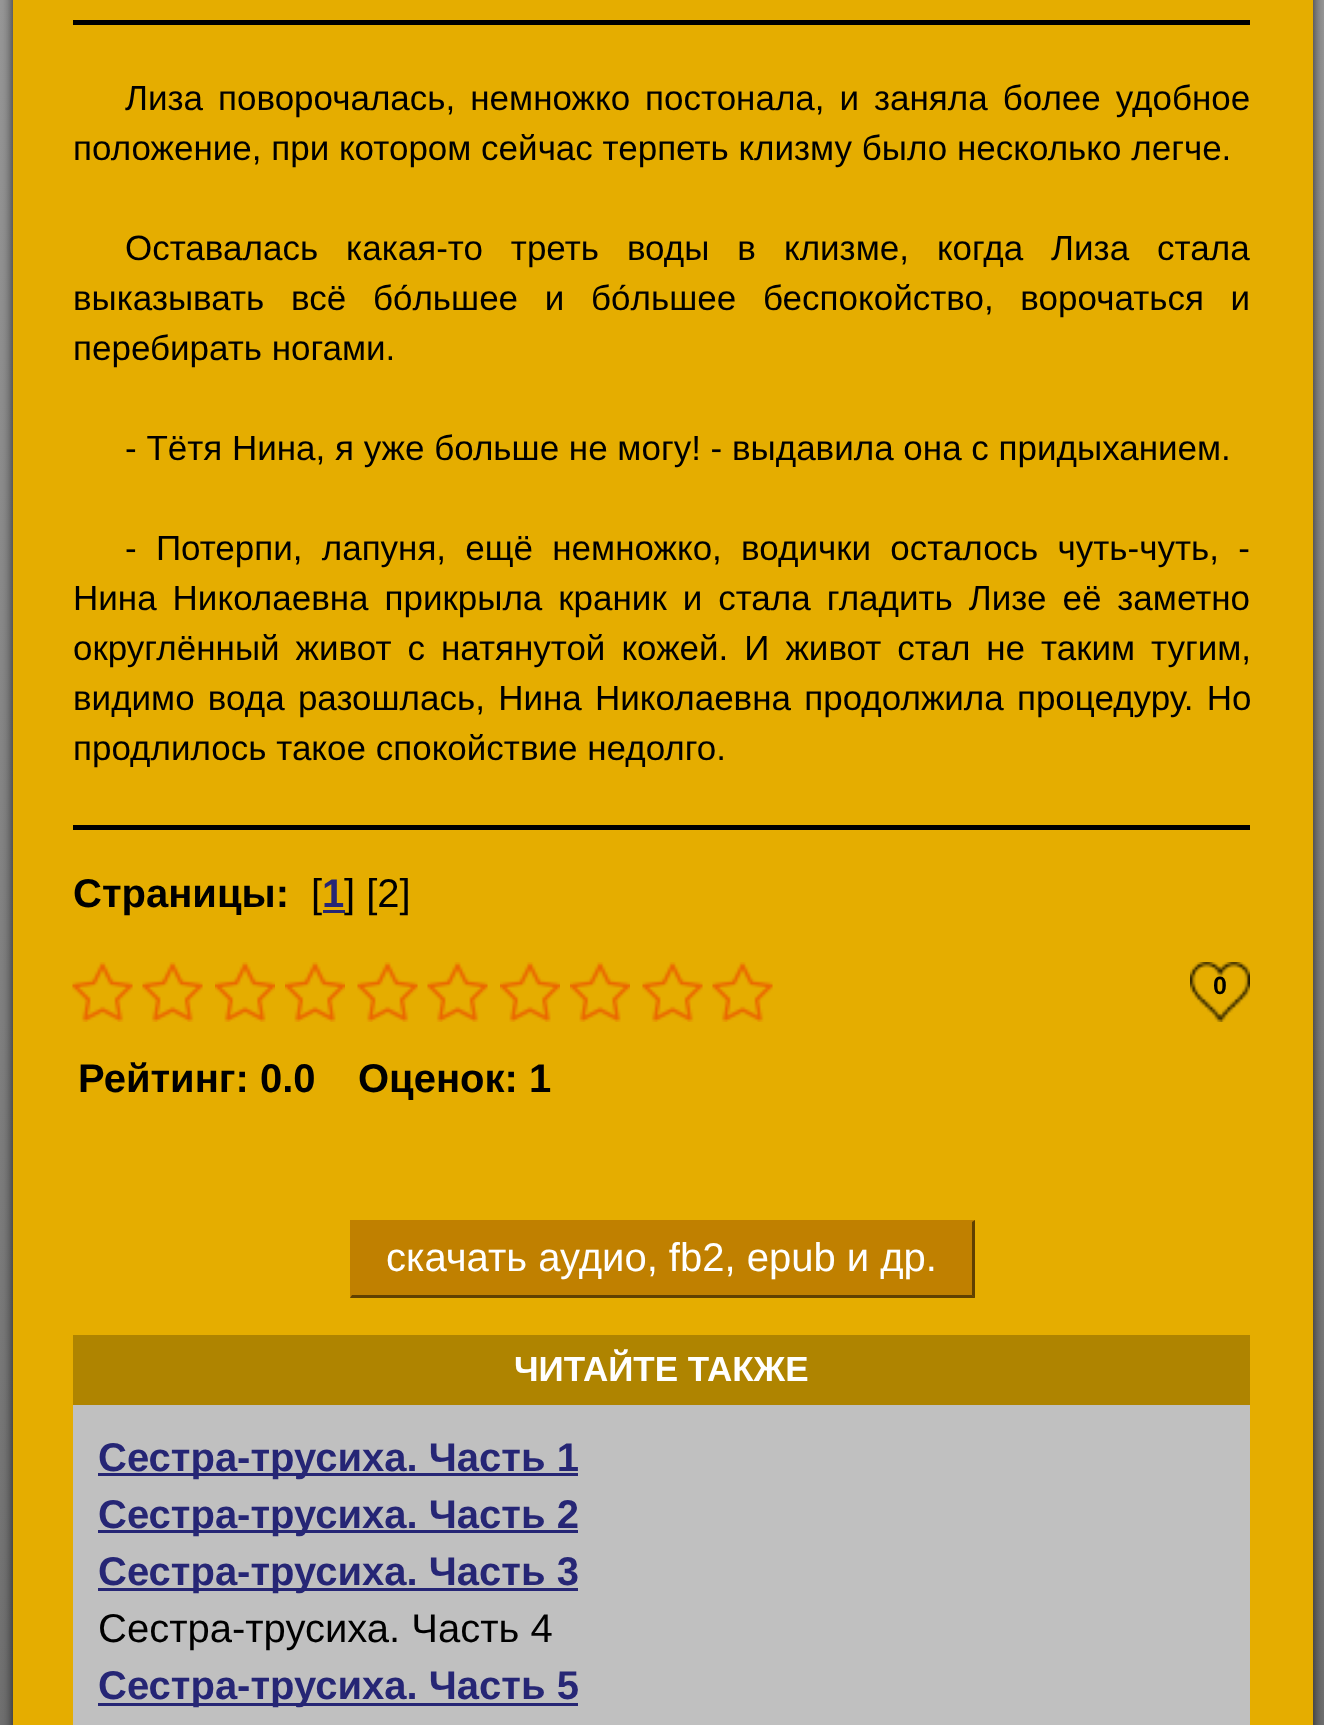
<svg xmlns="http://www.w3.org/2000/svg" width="1324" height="1725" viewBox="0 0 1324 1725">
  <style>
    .t1 { font: 35px Liberation Sans; fill: #000; }
    .t2 { font: bold 40px Liberation Sans; fill: #000; }
    .t3 { font: 40px Liberation Sans; fill: #000; }
    .t4 { font: bold 40px Liberation Sans; fill: #262675; }
    .t5 { font: bold 25px Liberation Sans; fill: #000; }
    .t6 { font: 40px Liberation Sans; fill: #fff; }
    .t7 { font: bold 35px Liberation Sans; fill: #fff; }
  </style>
  <defs>
    <linearGradient id="g1" gradientUnits="userSpaceOnUse" x1="663" y1="1725" x2="663" y2="0"><stop offset="0" stop-color="#707070"/><stop offset="1" stop-color="#979797"/></linearGradient>
  </defs>
  <rect width="100%" height="100%" fill="#fff"/>
  <rect x="0" y="0" width="1324" height="1725" fill="url(#g1)"/>
  <rect x="13" y="-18" width="1300" height="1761" fill="#000000bf" filter="blur(6px)"/>
  <rect x="13" y="0" width="1300" height="1725" fill="#e5ad00"/>
  <rect x="73" y="20" width="1177" height="5" fill="#000"/>
  <text x="125" y="110" word-spacing="5.25" class="t1">Лиза поворочалась, немножко постонала, и заняла более удобное</text>
  <text x="73" y="160" class="t1">положение, при котором сейчас терпеть клизму было несколько легче.</text>
  <text x="125" y="260" word-spacing="18.25" class="t1">Оставалась какая-то треть воды в клизме, когда Лиза стала</text>
  <text x="73" y="310" word-spacing="17" class="t1">выказывать всё бо́льшее и бо́льшее беспокойство, ворочаться и</text>
  <text x="73" y="360" class="t1">перебирать ногами.</text>
  <text x="125" y="460" class="t1">- Тётя Нина, я уже больше не могу! - выдавила она с придыханием.</text>
  <text x="125" y="560" word-spacing="9.5" class="t1">- Потерпи, лапуня, ещё немножко, водички осталось чуть-чуть, -</text>
  <text x="73" y="610" word-spacing="6.25" class="t1">Нина Николаевна прикрыла краник и стала гладить Лизе её заметно</text>
  <text x="73" y="660" word-spacing="6.25" class="t1">округлённый живот с натянутой кожей. И живот стал не таким тугим,</text>
  <text x="73" y="710" word-spacing="3.5" class="t1">видимо вода разошлась, Нина Николаевна продолжила процедуру. Но</text>
  <text x="73" y="760" class="t1">продлилось такое спокойствие недолго.</text>
  <rect x="73" y="825" width="1177" height="5" fill="#000"/>
  <text x="73" y="907" class="t2">Страницы:</text>
  <text x="311" y="907" class="t3">[</text>
  <text x="322" y="907" class="t4">1</text>
  <rect x="323" y="910" width="22" height="3" fill="#262675"/>
  <text x="344" y="907" class="t3">] [2]</text>
  <image x="72" y="962" width="61" height="60" href="images/1.png"/>
  <image x="142" y="962" width="61" height="60" href="images/2.png"/>
  <image x="215" y="962" width="60" height="60" href="images/3.png"/>
  <image x="285" y="962" width="60" height="60" href="images/4.png"/>
  <image x="357" y="962" width="61" height="60" href="images/1.png"/>
  <image x="427" y="962" width="61" height="60" href="images/2.png"/>
  <image x="500" y="962" width="60" height="60" href="images/5.png"/>
  <image x="570" y="962" width="60" height="60" href="images/6.png"/>
  <image x="642" y="962" width="61" height="60" href="images/2.png"/>
  <image x="712" y="962" width="61" height="60" href="images/2.png"/>
  <image x="1190" y="962" width="60" height="60" href="images/7.png"/>
  <text x="1213" y="994" class="t5">0</text>
  <text x="78" y="1092" class="t2">Рейтинг: 0.0</text>
  <text x="358" y="1092" class="t2">Оценок: 1</text>
  <rect x="350" y="1220" width="625" height="78" fill="#c08000"/>
  <path d="M975 1220V1298L972 1295V1222Z" fill="#604000"/>
  <path d="M975 1298H350L352 1295H972Z" fill="#00000080"/>
  <text x="386" y="1271" class="t6">скачать аудио, fb2, epub и др.</text>
  <rect x="73" y="1335" width="1177" height="70" fill="#af8400"/>
  <text x="514" y="1381" class="t7">ЧИТАЙТЕ ТАКЖЕ</text>
  <rect x="73" y="1405" width="1177" height="320" fill="#c0c0c0"/>
  <rect x="98" y="1473" width="480" height="3" fill="#262675"/>
  <text x="98" y="1471" class="t4">Сестра-трусиха. Часть 1</text>
  <rect x="98" y="1530" width="480" height="3" fill="#262675"/>
  <text x="98" y="1528" class="t4">Сестра-трусиха. Часть 2</text>
  <rect x="98" y="1588" width="480" height="3" fill="#262675"/>
  <text x="98" y="1585" class="t4">Сестра-трусиха. Часть 3</text>
  <text x="98" y="1642" class="t3">Сестра-трусиха. Часть 4</text>
  <rect x="98" y="1703" width="480" height="3" fill="#262675"/>
  <text x="98" y="1699" class="t4">Сестра-трусиха. Часть 5</text>
</svg>
